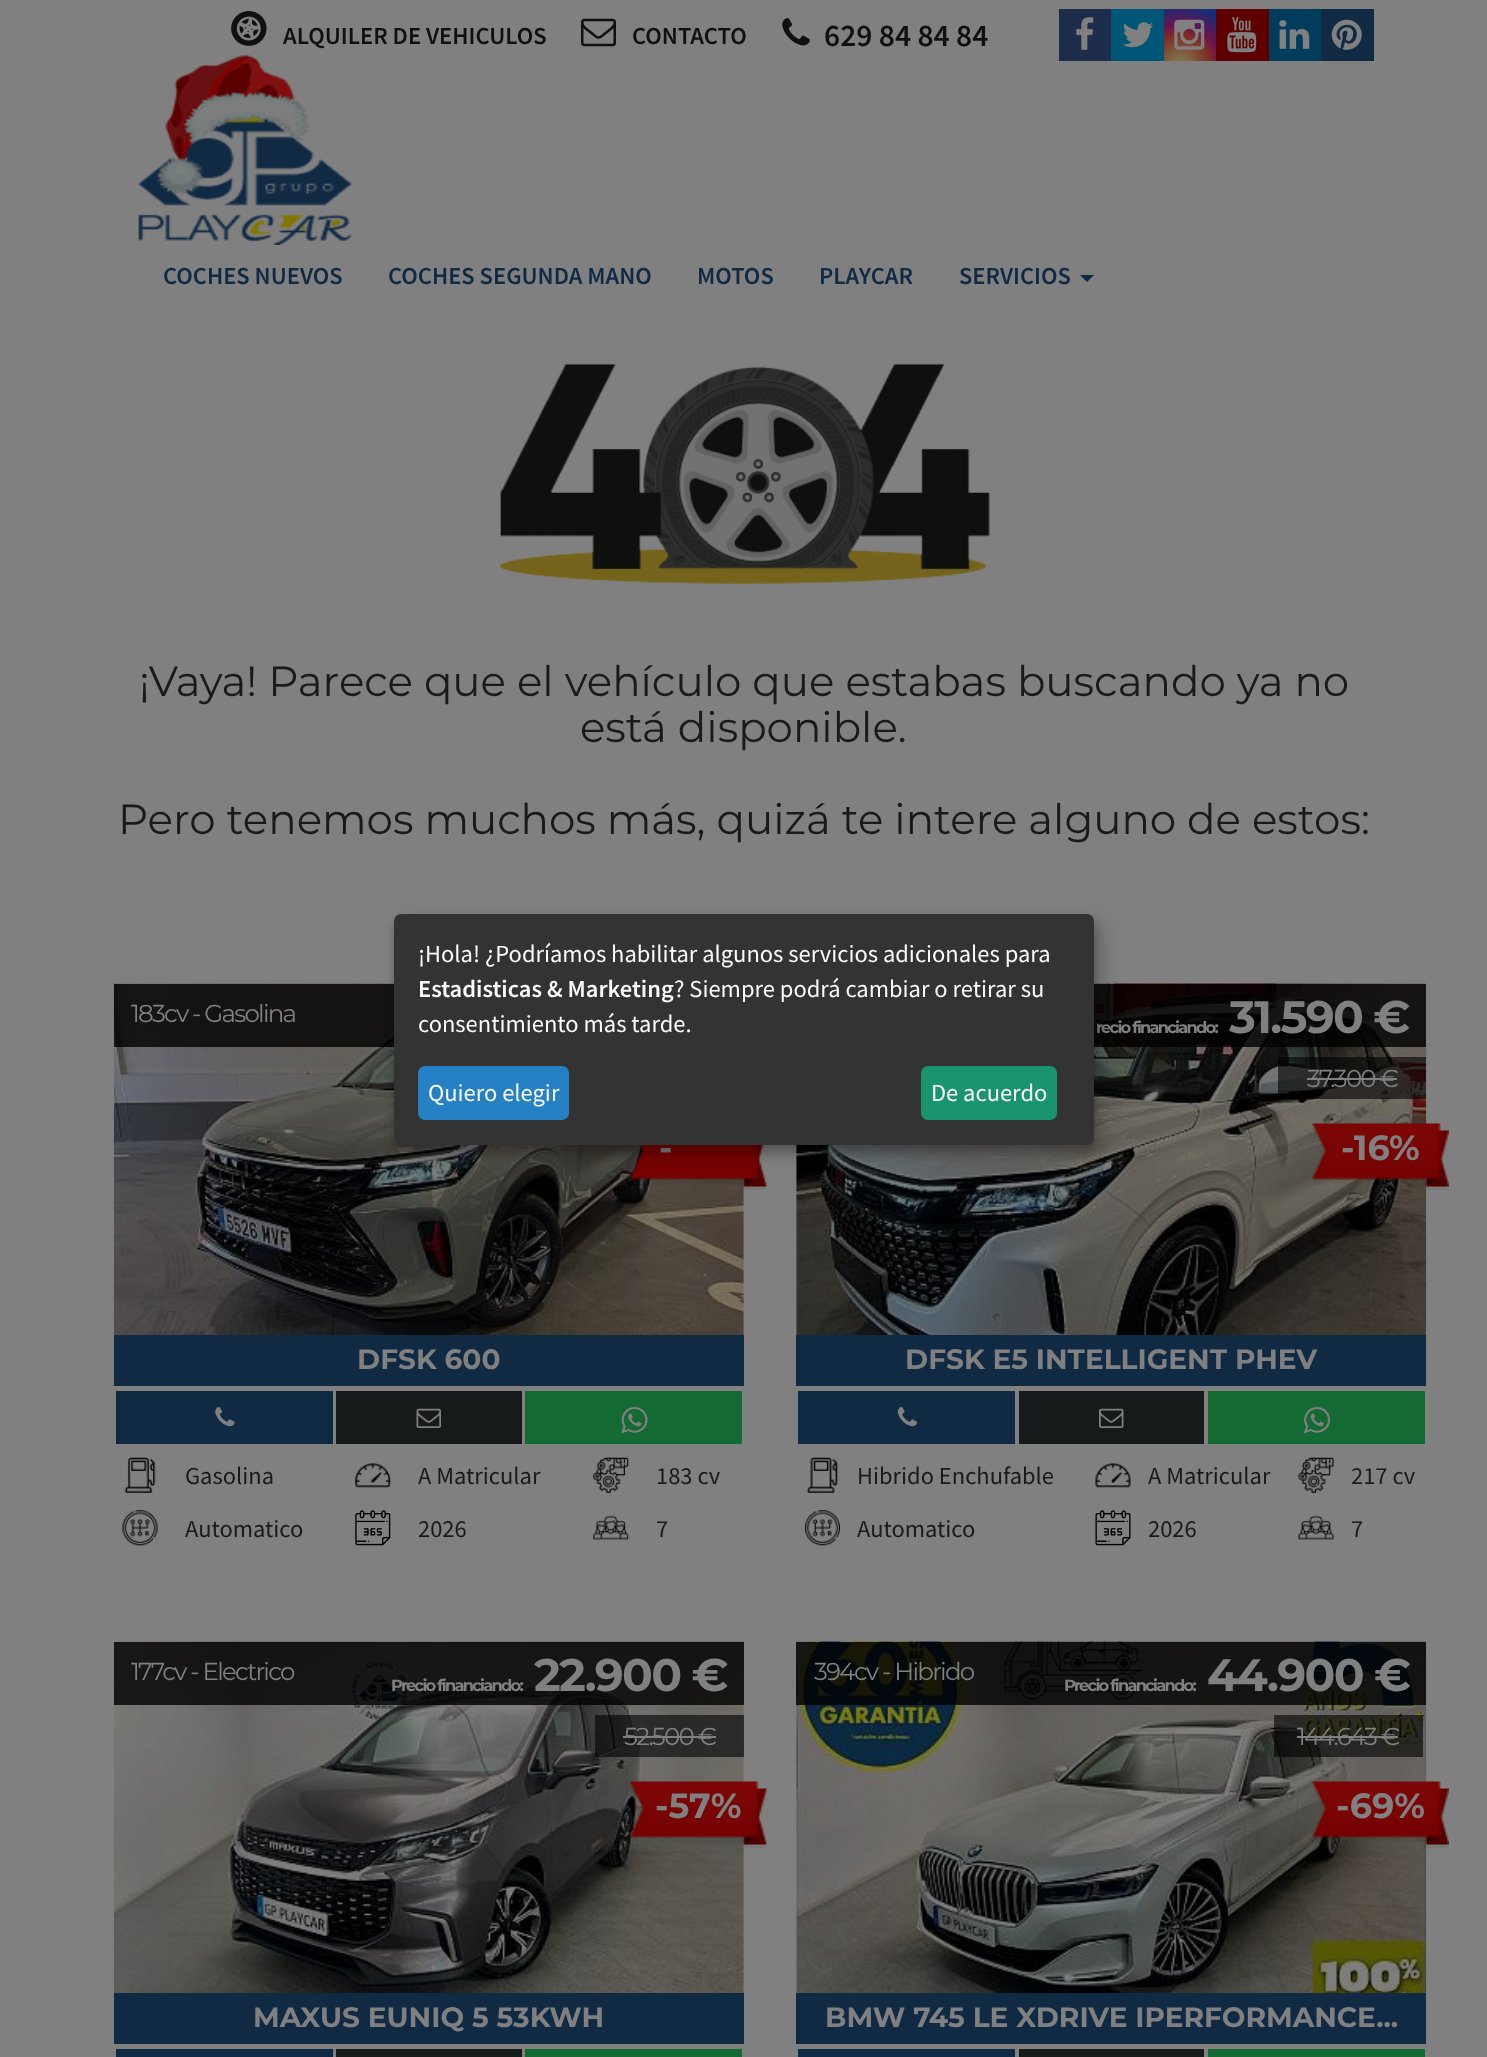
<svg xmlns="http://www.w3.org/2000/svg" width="1487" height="2057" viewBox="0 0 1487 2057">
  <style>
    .t1 { font: 600 24.5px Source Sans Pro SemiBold; fill: #101010; }
    .t2 { font: 600 31.5px Source Sans Pro SemiBold; fill: #101010; }
    .t3 { font: 600 24.5px Source Sans Pro SemiBold; fill: #102a44; }
    .t4 { font: 42px Montserrat; fill: #1a1a1a; }
    .t5 { font: 24.5px Montserrat; letter-spacing: -1.75px; fill: #808080; }
    .t6 { font: bold 35px Montserrat; fill: #808080; }
    .t7 { font: bold 28px Montserrat; fill: #808080; }
    .t8 { font: 24.5px Source Sans Pro; fill: #1a1a1a; }
    .t9 { font: bold 16.25px Montserrat; letter-spacing: -1.75px; fill: #808080; }
    .t10 { font: bold 45.5px Montserrat; letter-spacing: -1.75px; fill: #808080; }
    .t11 { font: 24.5px Source Sans Pro; fill: #fafafa; }
    .t12 { font: 600 24.5px Source Sans Pro SemiBold; fill: #fafafa; }
  </style>
  <defs>
    <radialGradient id="g1" gradientUnits="userSpaceOnUse" cx="1180" cy="65" r="67"><stop offset="0" stop-color="#7f7a4c"/><stop offset="0.05" stop-color="#7f7a4c"/><stop offset="0.45" stop-color="#7f2d25"/><stop offset="0.6" stop-color="#6b1250"/><stop offset="0.9" stop-color="#142d76"/></radialGradient>
  </defs>
  <rect width="100%" height="100%" fill="#808080"/>
  <image x="231" y="11" width="36" height="35" href="images/1.png"/>
  <text x="283" y="44" class="t1">ALQUILER DE VEHICULOS</text>
  <image x="581" y="18" width="35" height="29" href="images/2.png"/>
  <text x="632" y="44" class="t1">CONTACTO</text>
  <image x="782" y="18" width="28" height="28" href="images/3.png"/>
  <text x="824" y="46" class="t2">629 84 84 84</text>
  <rect x="1059" y="9" width="52" height="52" fill="#1e2d4c"/>
  <image x="1076" y="17" width="18" height="33" href="images/4.png"/>
  <rect x="1111" y="9" width="53" height="52" fill="#005677"/>
  <image x="1122" y="22" width="32" height="26" href="images/5.png"/>
  <rect x="1164" y="9" width="52" height="52" fill="url(#g1)"/>
  <image x="1174" y="19" width="31" height="31" href="images/6.png"/>
  <rect x="1216" y="9" width="53" height="52" fill="#5e0000"/>
  <image x="1227" y="17" width="30" height="36" href="images/7.png"/>
  <rect x="1269" y="9" width="52" height="52" fill="#003c5c"/>
  <image x="1279" y="20" width="31" height="29" href="images/8.png"/>
  <rect x="1321" y="9" width="53" height="52" fill="#102a44"/>
  <image x="1331" y="19" width="31" height="31" href="images/9.png"/>
  <image x="138" y="55" width="215" height="190" href="images/10.png"/>
  <text x="163" y="284" class="t3">COCHES NUEVOS</text>
  <text x="388" y="284" class="t3">COCHES SEGUNDA MANO</text>
  <text x="697" y="284" class="t3">MOTOS</text>
  <text x="819" y="284" class="t3">PLAYCAR</text>
  <text x="959" y="284" class="t3">SERVICIOS</text>
  <path d="M1080 275H1094L1087 282Z" fill="#102a44"/>
  <image x="499" y="363" width="491" height="221" href="images/11.png"/>
  <text x="139" y="696" class="t4">¡Vaya! Parece que el vehículo que estabas buscando ya no</text>
  <text x="580" y="742" class="t4">está disponible.</text>
  <text x="118" y="834" class="t4">Pero tenemos muchos más, quizá te intere alguno de estos:</text>
  <image x="113" y="983" width="631" height="403" href="images/12.png"/>
  <rect x="114" y="984" width="280" height="63" fill="#000000cc"/>
  <text x="131" y="1022" class="t5">183cv - Gasolina</text>
  <image x="630" y="1145" width="137" height="45" href="images/13.png"/>
  <text x="659" y="1160" class="t6">-</text>
  <rect x="114" y="1335" width="630" height="51" fill="#102a44"/>
  <text x="357" y="1369" class="t7">DFSK 600</text>
  <rect x="116" y="1391" width="217" height="53" fill="#102a44"/>
  <image x="215" y="1407" width="20" height="20" href="images/14.png"/>
  <rect x="336" y="1391" width="186" height="53" fill="#171a1b"/>
  <image x="416" y="1408" width="25" height="20" href="images/15.png"/>
  <rect x="525" y="1391" width="217" height="53" fill="#136a33"/>
  <image x="621" y="1407" width="27" height="27" href="images/16.png"/>
  <image x="124" y="1457" width="32" height="36" href="images/17.png"/>
  <text x="185" y="1484" class="t8">Gasolina</text>
  <image x="355" y="1463" width="36" height="25" href="images/18.png"/>
  <text x="418" y="1484" class="t8">A Matricular</text>
  <image x="593" y="1457" width="36" height="36" href="images/19.png"/>
  <text x="656" y="1484" class="t8">183 cv</text>
  <image x="122" y="1510" width="36" height="36" href="images/20.png"/>
  <text x="185" y="1537" class="t8">Automatico</text>
  <image x="355" y="1510" width="36" height="36" href="images/21.png"/>
  <text x="418" y="1537" class="t8">2026</text>
  <image x="593" y="1515" width="36" height="25" href="images/22.png"/>
  <text x="656" y="1537" class="t8">7</text>
  <image x="796" y="983" width="631" height="403" href="images/23.png"/>
  <rect x="1094" y="984" width="332" height="63" fill="#000000cc"/>
  <text x="1096" y="1033" class="t9">recio financiando:</text>
  <text x="1229" y="1033" class="t10">31.590 €</text>
  <rect x="1278" y="1057" width="148" height="42" fill="#00000099"/>
  <text x="1307" y="1087" class="t5">37.300 €</text>
  <rect x="1307" y="1078" width="90" height="2" fill="#808080"/>
  <image x="1312" y="1123" width="137" height="67" href="images/24.png"/>
  <text x="1341" y="1160" class="t6">-16%</text>
  <rect x="796" y="1335" width="630" height="51" fill="#102a44"/>
  <text x="905" y="1369" class="t7">DFSK E5 INTELLIGENT PHEV</text>
  <rect x="798" y="1391" width="217" height="53" fill="#102a44"/>
  <image x="897" y="1407" width="20" height="20" href="images/25.png"/>
  <rect x="1019" y="1391" width="185" height="53" fill="#171a1b"/>
  <image x="1099" y="1408" width="25" height="20" href="images/26.png"/>
  <rect x="1208" y="1391" width="217" height="53" fill="#136a33"/>
  <image x="1303" y="1407" width="27" height="27" href="images/27.png"/>
  <image x="807" y="1457" width="31" height="36" href="images/28.png"/>
  <text x="857" y="1484" class="t8">Hibrido Enchufable</text>
  <image x="1095" y="1463" width="36" height="25" href="images/29.png"/>
  <text x="1148" y="1484" class="t8">A Matricular</text>
  <image x="1298" y="1457" width="36" height="36" href="images/30.png"/>
  <text x="1351" y="1484" class="t8">217 cv</text>
  <image x="805" y="1510" width="35" height="36" href="images/31.png"/>
  <text x="857" y="1537" class="t8">Automatico</text>
  <image x="1095" y="1510" width="36" height="36" href="images/32.png"/>
  <text x="1148" y="1537" class="t8">2026</text>
  <image x="1298" y="1515" width="36" height="25" href="images/33.png"/>
  <text x="1351" y="1537" class="t8">7</text>
  <image x="113" y="1641" width="631" height="403" href="images/34.png"/>
  <rect x="114" y="1642" width="630" height="63" fill="#000000cc"/>
  <text x="131" y="1680" class="t5">177cv - Electrico</text>
  <text x="391" y="1691" class="t9">Precio financiando:</text>
  <text x="534" y="1691" class="t10">22.900 €</text>
  <rect x="595" y="1715" width="149" height="42" fill="#00000099"/>
  <text x="624" y="1745" class="t5">52.500 €</text>
  <rect x="623" y="1736" width="93" height="2" fill="#808080"/>
  <image x="630" y="1781" width="137" height="67" href="images/35.png"/>
  <text x="655" y="1818" class="t6">-57%</text>
  <rect x="114" y="1993" width="630" height="51" fill="#102a44"/>
  <text x="253" y="2027" class="t7">MAXUS EUNIQ 5 53KWH</text>
  <rect x="116" y="2049" width="217" height="8" fill="#102a44"/>
  <rect x="336" y="2049" width="186" height="8" fill="#171a1b"/>
  <rect x="525" y="2049" width="217" height="8" fill="#136a33"/>
  <image x="796" y="1641" width="631" height="403" href="images/36.png"/>
  <rect x="796" y="1642" width="630" height="63" fill="#000000cc"/>
  <text x="814" y="1680" class="t5">394cv - Hibrido</text>
  <text x="1064" y="1691" class="t9">Precio financiando:</text>
  <text x="1207" y="1691" class="t10">44.900 €</text>
  <rect x="1274" y="1715" width="149" height="42" fill="#00000099"/>
  <text x="1297" y="1745" class="t5">144.643 €</text>
  <rect x="1297" y="1736" width="101" height="2" fill="#808080"/>
  <image x="1312" y="1781" width="137" height="67" href="images/37.png"/>
  <text x="1336" y="1818" class="t6">-69%</text>
  <rect x="796" y="1993" width="630" height="51" fill="#102a44"/>
  <text x="825" y="2027" class="t7">BMW 745 LE XDRIVE IPERFORMANCE...</text>
  <rect x="798" y="2049" width="217" height="8" fill="#102a44"/>
  <rect x="1019" y="2049" width="185" height="8" fill="#171a1b"/>
  <rect x="1208" y="2049" width="217" height="8" fill="#136a33"/>
  <rect x="403" y="922" width="700" height="231" rx="7" fill="#00000030" filter="blur(9px)"/>
  <rect x="394" y="921" width="700" height="231" rx="7" fill="#00000033" filter="blur(5px)"/>
  <rect x="394" y="914" width="700" height="231" rx="7" fill="#333"/>
  <text x="418" y="962" class="t11">¡Hola! ¿Podríamos habilitar algunos servicios adicionales para</text>
  <text x="418" y="997" class="t12">Estadisticas &amp; Marketing</text>
  <text x="674" y="997" class="t11">? Siempre podrá cambiar o retirar su</text>
  <text x="418" y="1032" class="t11">consentimiento más tarde.</text>
  <rect x="418" y="1066" width="151" height="54" rx="7" fill="#2581c4"/>
  <text x="428" y="1101" class="t11">Quiero elegir</text>
  <rect x="921" y="1066" width="136" height="54" rx="7" fill="#1a936f"/>
  <text x="931" y="1101" class="t11">De acuerdo</text>
</svg>
